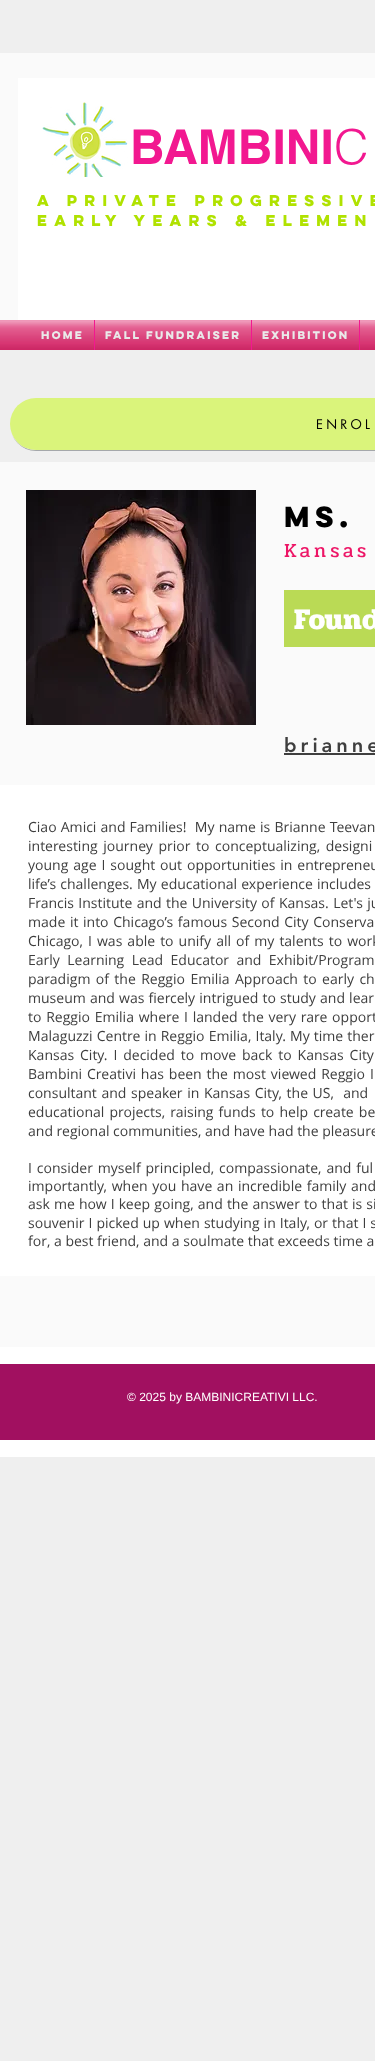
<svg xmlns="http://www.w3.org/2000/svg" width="375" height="2061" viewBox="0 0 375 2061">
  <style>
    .t1 { font: bold 48px helvetica; fill: #f21890; }
    .t2 { font: 300 48px helvetica; fill: #f21890; }
    .t3 { font: bold 14px 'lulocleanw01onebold'; letter-spacing: 4.2px; fill: #b0e200; }
    .t4 { font: bold 10px 'lulocleanw01onebold'; fill: #fff; }
    .t5 { font: 13px futura; letter-spacing: 3.25px; fill: #000; }
    .t6 { font: bold 26px 'lulocleanw01onebold'; fill: #000; }
    .t7 { font: 20px Pridi; letter-spacing: 4px; fill: #ed1566; }
    .t8 { font: bold 30px Pridi; letter-spacing: 0.5px; fill: #fff; }
    .t9 { font: 900 20px 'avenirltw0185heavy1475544'; letter-spacing: 4px; fill: #3e3e3e; }
    .t10 { font: 14px Open Sans; fill: #3e3e3e; }
    .t11 { font: 12px Liberation Sans; fill: #fff; }
  </style>
  <rect width="100%" height="100%" fill="#efefef"/>
  <rect x="0" y="53" width="375" height="267" fill="#fafafa"/>
  <rect x="18" y="78" width="357" height="242" fill="#fff"/>
  <image x="42" y="102" width="86" height="75" href="images/1.png"/>
  <text x="130" y="164" class="t1">BAMBINI</text>
  <text x="334" y="164" class="t2">C</text>
  <text x="37" y="206" class="t3">a private progressive</text>
  <text x="37" y="226" class="t3">EARLY YEARS &amp; ELEMEN</text>
  <rect x="0" y="320" width="94" height="30" fill="#ed1566"/>
  <image x="0" y="320" width="31" height="30" href="images/2.png"/>
  <image x="0" y="320" width="31" height="30" href="images/3.png"/>
  <text x="41" y="339" class="t4">HOME</text>
  <image x="31" y="320" width="63" height="30" href="images/4.png"/>
  <image x="31" y="320" width="63" height="30" href="images/5.png"/>
  <rect x="95" y="320" width="156" height="30" fill="#ed1566"/>
  <rect x="94" y="320" width="1" height="30" fill="#f21890"/>
  <text x="105" y="339" class="t4">FALL FUNDRAISER</text>
  <image x="95" y="320" width="156" height="30" href="images/6.png"/>
  <image x="95" y="320" width="156" height="30" href="images/7.png"/>
  <rect x="252" y="320" width="107" height="30" fill="#ed1566"/>
  <rect x="251" y="320" width="1" height="30" fill="#f21890"/>
  <text x="262" y="339" class="t4">EXHIBITION</text>
  <image x="252" y="320" width="107" height="30" href="images/8.png"/>
  <image x="252" y="320" width="107" height="30" href="images/9.png"/>
  <rect x="360" y="320" width="15" height="30" fill="#ed1566"/>
  <rect x="359" y="320" width="1" height="30" fill="#f21890"/>
  <image x="360" y="320" width="15" height="30" href="images/10.png"/>
  <image x="360" y="320" width="15" height="30" href="images/11.png"/>
  <path d="M10 424C10 439 22 451 36 451H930C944 451 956 439 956 424C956 439 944 450 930 450H36C22 450 10 439 10 424Z" fill="#a5a8ab"/>
  <rect x="10" y="398" width="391" height="52" rx="26" fill="#daf47b"/>
  <text x="316" y="429" class="t5">ENROL</text>
  <rect x="0" y="462" width="375" height="885" fill="#fafafa"/>
  <image x="26" y="490" width="230" height="235" href="images/12.png"/>
  <text x="284" y="527" class="t6">ms.</text>
  <text x="284" y="557" class="t7">Kansas</text>
  <rect x="284" y="590" width="91" height="57" fill="#bada55"/>
  <text x="294" y="629" class="t8">Found</text>
  <text x="284" y="752" class="t9">brianne</text>
  <rect x="284" y="753" width="91" height="2" fill="#3e3e3e"/>
  <rect x="0" y="785" width="375" height="491" fill="#fff"/>
  <text x="28" y="832" word-spacing="0.5" class="t10" xml:space="preserve">Ciao Amici and Families!  My name is Brianne Teevan</text>
  <text x="28" y="851" word-spacing="2" class="t10">interesting journey prior to conceptualizing, designi</text>
  <text x="28" y="870" word-spacing="1.25" class="t10">young age I sought out opportunities in entrepreneu</text>
  <text x="28" y="889" word-spacing="0.5" class="t10">life’s challenges. My educational experience includes</text>
  <text x="28" y="908" word-spacing="0.75" class="t10">Francis Institute and the University of Kansas. Let's ju</text>
  <text x="28" y="927" word-spacing="1" class="t10">made it into Chicago’s famous Second City Conserva</text>
  <text x="28" y="946" word-spacing="1.4" class="t10">Chicago, I was able to unify all of my talents to work</text>
  <text x="28" y="965" word-spacing="3.75" class="t10">Early Learning Lead Educator and Exhibit/Program</text>
  <text x="28" y="984" word-spacing="1.75" class="t10">paradigm of the Reggio Emilia Approach to early ch</text>
  <text x="28" y="1003" word-spacing="0.5" class="t10">museum and was fiercely intrigued to study and lear</text>
  <text x="28" y="1022" word-spacing="1.1" class="t10">to Reggio Emilia where I landed the very rare opport</text>
  <text x="28" y="1041" word-spacing="0.5" class="t10">Malaguzzi Centre in Reggio Emilia, Italy. My time ther</text>
  <text x="28" y="1060" word-spacing="2.25" class="t10">Kansas City. I decided to move back to Kansas City</text>
  <text x="28" y="1079" word-spacing="1.25" class="t10">Bambini Creativi has been the most viewed Reggio I</text>
  <text x="28" y="1098" word-spacing="1" class="t10" xml:space="preserve">consultant and speaker in Kansas City, the US,  and</text>
  <text x="28" y="1117" word-spacing="1.5" class="t10">educational projects, raising funds to help create be</text>
  <text x="28" y="1136" class="t10">and regional communities, and have had the pleasure</text>
  <text x="28" y="1173" word-spacing="1.25" class="t10">I consider myself principled, compassionate, and ful</text>
  <text x="28" y="1191" word-spacing="1" class="t10">importantly, when you have an incredible family and</text>
  <text x="28" y="1209" word-spacing="0.5" class="t10">ask me how I keep going, and the answer to that is si</text>
  <text x="28" y="1228" word-spacing="0.4" class="t10">souvenir I picked up when studying in Italy, or that I s</text>
  <text x="28" y="1246" class="t10">for, a best friend, and a soulmate that exceeds time a</text>
  <rect x="0" y="1347" width="375" height="110" fill="#fff"/>
  <rect x="0" y="1364" width="375" height="76" fill="#a11060"/>
  <text x="127" y="1401" class="t11">© 2025 by BAMBINICREATIVI LLC.</text>
</svg>
